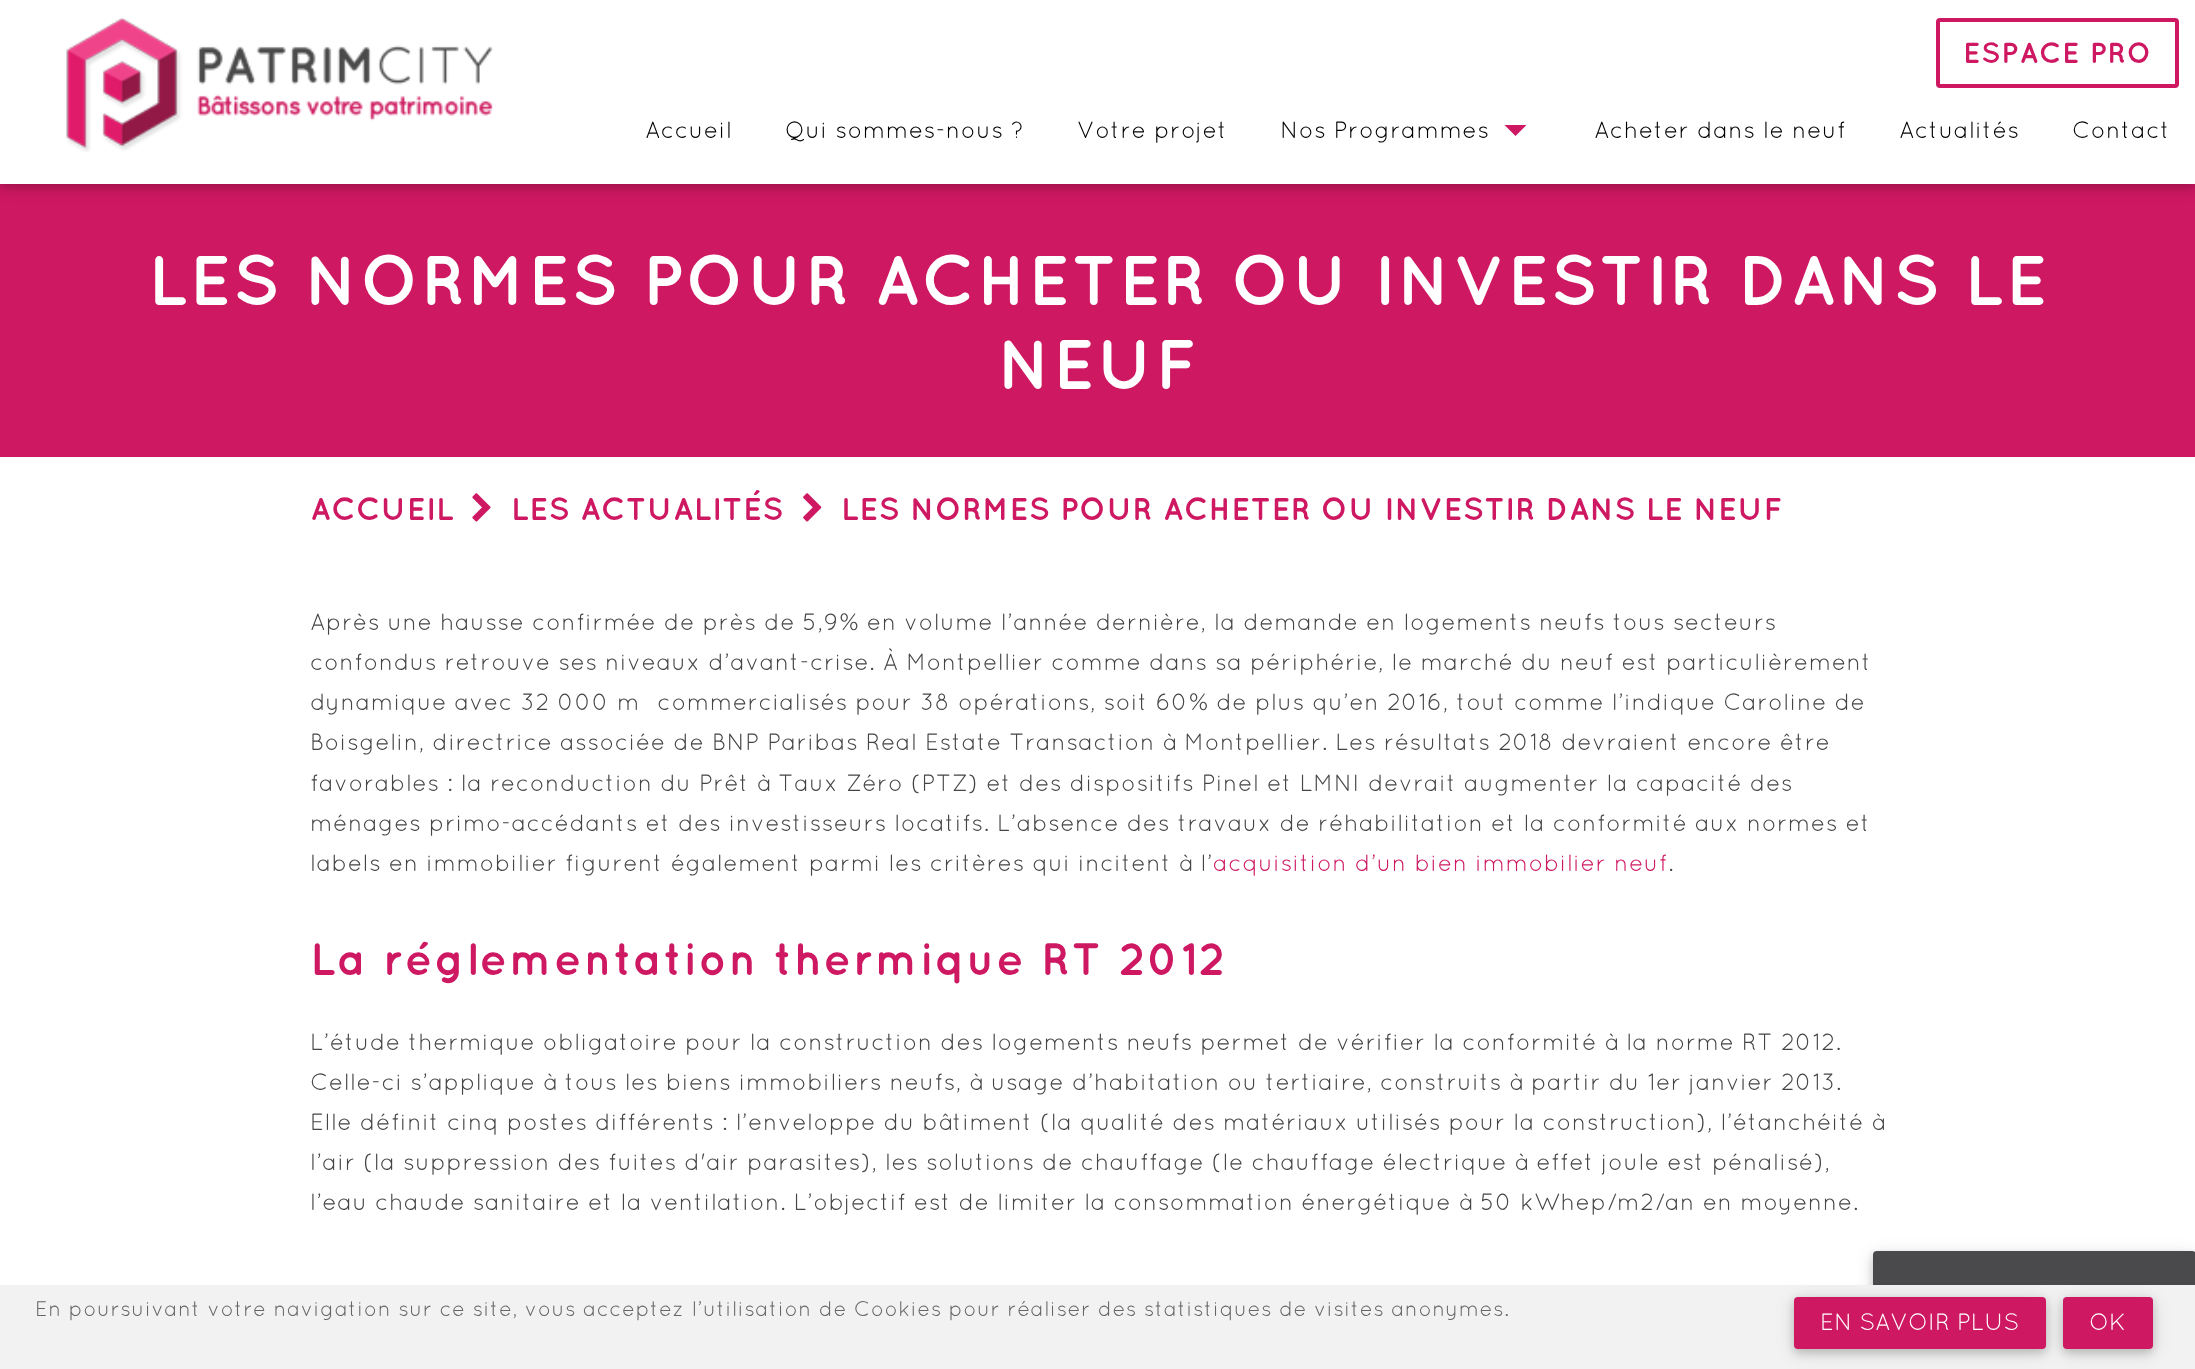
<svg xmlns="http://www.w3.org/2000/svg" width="2195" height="1369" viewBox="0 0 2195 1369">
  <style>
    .t1 { font: bold 29px Quicksand; letter-spacing: 0.9px; fill: #ce1862; }
    .t2 { font: 23.62px Quicksand; letter-spacing: 0.53px; fill: #000; }
    .t3 { font: bold 70px Quicksand; letter-spacing: 1.85px; fill: #fff; }
    .t4 { font: bold 31.5px Quicksand; letter-spacing: 0.53px; fill: #ce1862; }
    .t5 { font: 23.62px Quicksand; letter-spacing: 0.53px; fill: #454545; }
    .t6 { font: 23.62px Quicksand; letter-spacing: 0.53px; fill: #ce1862; }
    .t7 { font: bold 45.5px Quicksand; letter-spacing: 1.85px; fill: #ce1862; }
    .t8 { font: 21.25px Quicksand; letter-spacing: 0.53px; fill: #666; }
    .t9 { font: 23.62px Quicksand; fill: #fff; }
  </style>
  <rect width="100%" height="100%" fill="#fff"/>
  <rect x="0" y="184" width="2195" height="273" fill="#ce1862"/>
  <rect x="0" y="4" width="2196" height="183" fill="#0000001f" filter="blur(9px)"/>
  <rect x="0" y="4" width="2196" height="183" fill="#00000029" filter="blur(4.5px)"/>
  <rect x="0" y="0" width="2195" height="184" fill="#fff"/>
  <rect x="1938" y="20" width="239" height="66" rx="2" fill="none" stroke="#ce1862" stroke-width="4"/>
  <text x="1963" y="63" class="t1">ESPACE PRO</text>
  <image x="66" y="17" width="427" height="135" href="images/1.png"/>
  <text x="645" y="138" class="t2">Accueil</text>
  <text x="785" y="138" class="t2">Qui sommes-nous ?</text>
  <text x="1077" y="138" class="t2">Votre projet</text>
  <text x="1280" y="138" class="t2">Nos Programmes</text>
  <path d="M1504.5 125H1526.5L1515.5 136Z" fill="#ce1862"/>
  <text x="1594" y="138" class="t2">Acheter dans le neuf</text>
  <text x="1899" y="138" class="t2">Actualités</text>
  <text x="2072" y="138" class="t2">Contact</text>
  <text x="148" y="305" class="t3">LES NORMES POUR ACHETER OU INVESTIR DANS LE</text>
  <text x="997" y="389" class="t3">NEUF</text>
  <text x="310" y="520" class="t4">ACCUEIL</text>
  <image x="472" y="493" width="19" height="29" href="images/2.png"/>
  <text x="511" y="520" class="t4">LES ACTUALITÉS</text>
  <image x="803" y="493" width="19" height="29" href="images/3.png"/>
  <text x="841" y="520" class="t4">LES NORMES POUR ACHETER OU INVESTIR DANS LE NEUF</text>
  <text x="310" y="630" class="t5">Après une hausse confirmée de près de 5,9% en volume l’année dernière, la demande en logements neufs tous secteurs</text>
  <text x="310" y="670" class="t5">confondus retrouve ses niveaux d’avant-crise. À Montpellier comme dans sa périphérie, le marché du neuf est particulièrement</text>
  <text x="310" y="710" class="t5">dynamique avec 32 000 m² commercialisés pour 38 opérations, soit 60% de plus qu’en 2016, tout comme l’indique Caroline de</text>
  <text x="310" y="750" class="t5">Boisgelin, directrice associée de BNP Paribas Real Estate Transaction à Montpellier. Les résultats 2018 devraient encore être</text>
  <text x="310" y="791" class="t5">favorables : la reconduction du Prêt à Taux Zéro (PTZ) et des dispositifs Pinel et LMNI devrait augmenter la capacité des</text>
  <text x="310" y="831" class="t5">ménages primo-accédants et des investisseurs locatifs. L’absence des travaux de réhabilitation et la conformité aux normes et</text>
  <text x="310" y="871" class="t5">labels en immobilier figurent également parmi les critères qui incitent à l’</text>
  <text x="1213" y="871" class="t6">acquisition d’un bien immobilier neuf</text>
  <text x="1668" y="871" class="t5">.</text>
  <text x="310" y="975" class="t7">La réglementation thermique RT 2012</text>
  <text x="310" y="1050" class="t5">L’étude thermique obligatoire pour la construction des logements neufs permet de vérifier la conformité à la norme RT 2012.</text>
  <text x="310" y="1090" class="t5">Celle-ci s’applique à tous les biens immobiliers neufs, à usage d’habitation ou tertiaire, construits à partir du 1er janvier 2013.</text>
  <text x="310" y="1130" class="t5">Elle définit cinq postes différents : l’enveloppe du bâtiment (la qualité des matériaux utilisés pour la construction), l’étanchéité à</text>
  <text x="310" y="1170" class="t5">l’air (la suppression des fuites d'air parasites), les solutions de chauffage (le chauffage électrique à effet joule est pénalisé),</text>
  <text x="310" y="1210" class="t5">l’eau chaude sanitaire et la ventilation. L’objectif est de limiter la consommation énergétique à 50 kWhep/m2/an en moyenne.</text>
  <rect x="1873" y="1255" width="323" height="105" rx="4" fill="#0000001f" filter="blur(9px)"/>
  <rect x="1873" y="1255" width="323" height="105" rx="4" fill="#00000029" filter="blur(4.5px)"/>
  <rect x="1873" y="1251" width="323" height="105" rx="4" fill="#4a4a4d"/>
  <rect x="0" y="1285" width="2195" height="84" fill="#f2f2f2"/>
  <text x="35" y="1316" class="t8">En poursuivant votre navigation sur ce site, vous acceptez l’utilisation de Cookies pour réaliser des statistiques de visites anonymes.</text>
  <rect x="1794" y="1300" width="252" height="53" rx="4" fill="#0000001f" filter="blur(9px)"/>
  <rect x="1794" y="1300" width="252" height="53" rx="4" fill="#00000029" filter="blur(4.5px)"/>
  <rect x="1794" y="1297" width="252" height="52" rx="4" fill="#ce1862"/>
  <text x="1820" y="1330" class="t9">EN SAVOIR PLUS</text>
  <rect x="2063" y="1300" width="90" height="53" rx="4" fill="#0000001f" filter="blur(9px)"/>
  <rect x="2063" y="1300" width="90" height="53" rx="4" fill="#00000029" filter="blur(4.5px)"/>
  <rect x="2063" y="1297" width="90" height="52" rx="4" fill="#ce1862"/>
  <text x="2089" y="1330" class="t9">OK</text>
</svg>
